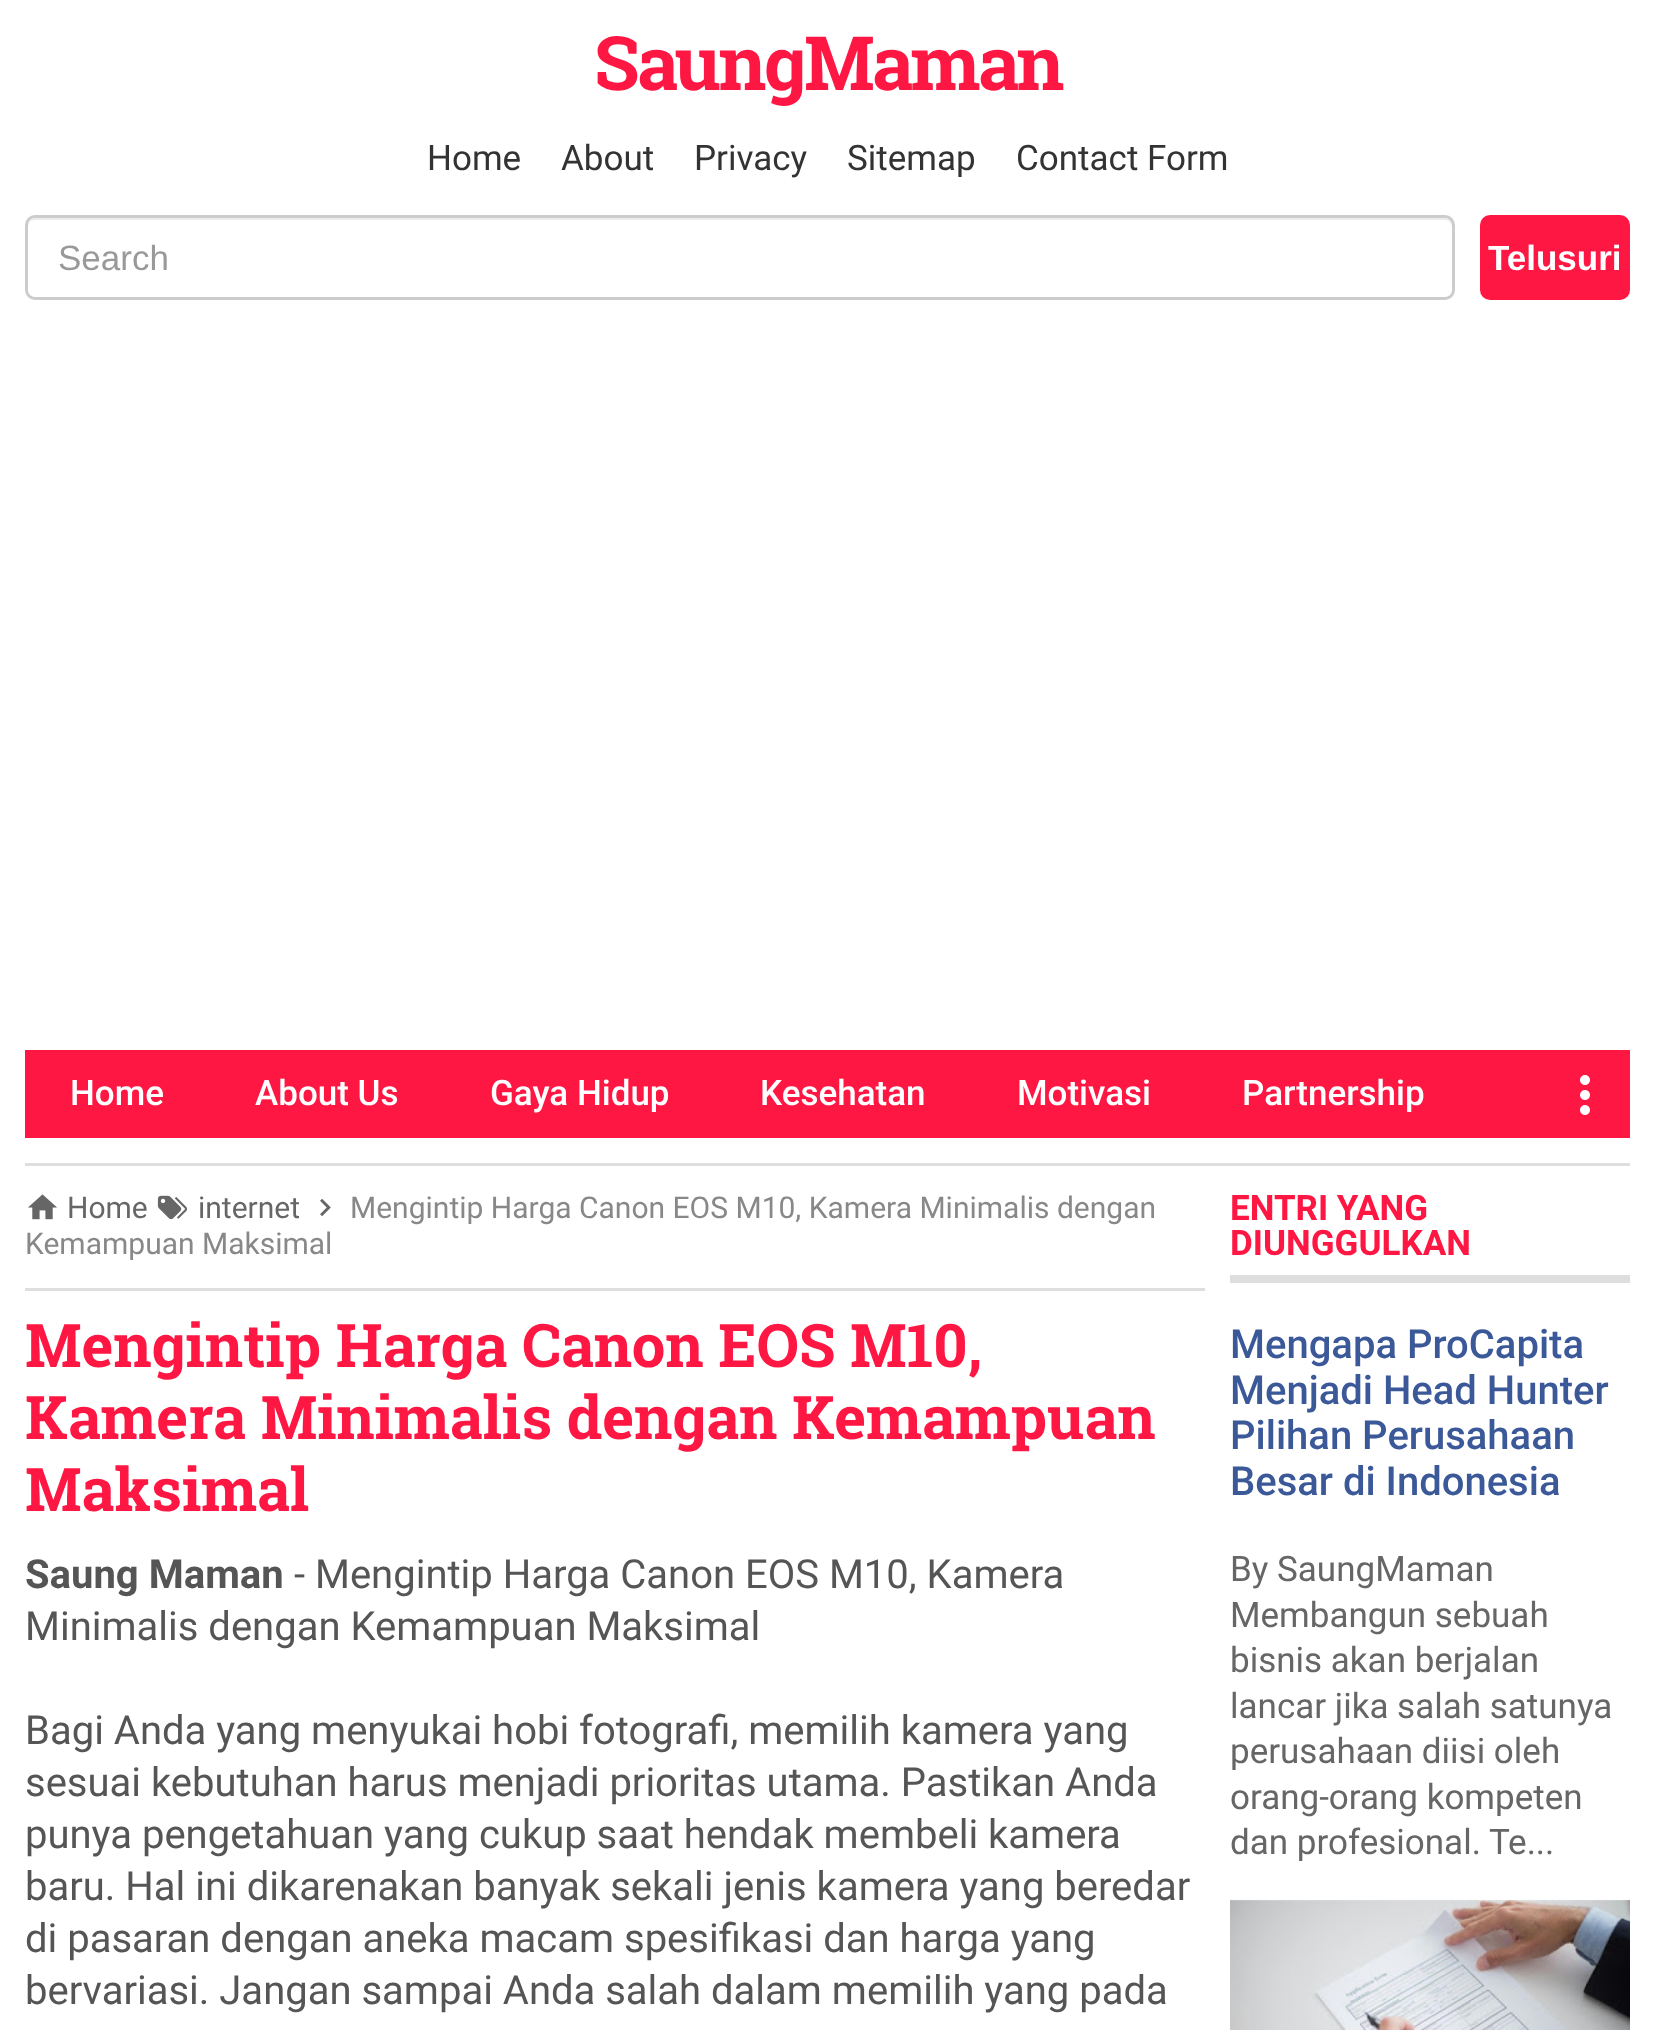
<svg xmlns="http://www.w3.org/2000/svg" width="1654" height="2030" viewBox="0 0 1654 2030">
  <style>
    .t1 { font: bold 75px Roboto Slab; letter-spacing: -2.5px; fill: #ff1744; }
    .t2 { font: 35px Roboto; fill: #333; }
    .t3 { font: 35px Liberation Sans; fill: #999; }
    .t4 { font: bold 35px Liberation Sans; fill: #fff; }
    .t5 { font: 500 35px Roboto; fill: #fff; }
    .t6 { font: 30px Roboto; fill: #666; }
    .t7 { font: 30px Roboto; fill: #888; }
    .t8 { font: bold 60px Roboto Slab; fill: #ff1744; }
    .t9 { font: bold 40px Roboto; fill: #555; }
    .t10 { font: 40px Roboto; fill: #555; }
    .t11 { font: bold 35px Roboto; fill: #ff1744; }
    .t12 { font: 500 40px Roboto; fill: #3b5998; }
    .t13 { font: 35px Roboto; fill: #666; }
  </style>
  <rect width="100%" height="100%" fill="#fff"/>
  <text x="594" y="90" class="t1">SaungMaman</text>
  <text x="427" y="170" class="t2">Home</text>
  <text x="561" y="170" class="t2">About</text>
  <text x="694" y="170" class="t2">Privacy</text>
  <text x="847" y="170" class="t2">Sitemap</text>
  <text x="1016" y="170" class="t2">Contact Form</text>
  <path d="M35 220H1445C1449 220 1452 223 1452 228V294C1453 293 1453 292 1453 290V226C1453 222 1449 218 1445 218H36C32 218 28 222 28 226V228C28 223 31 220 35 220Z" fill="#ececec"/>
  <rect x="26.5" y="216.5" width="1427" height="82" rx="8.5" fill="none" stroke="#ccc" stroke-width="3"/>
  <text x="58" y="270" class="t3">Search</text>
  <rect x="1480" y="215" width="150" height="85" rx="10" fill="#ff1744"/>
  <text x="1488" y="270" class="t4">Telusuri</text>
  <rect x="25" y="1050" width="1605" height="88" fill="#ff1744"/>
  <text x="70" y="1105" class="t5">Home</text>
  <text x="255" y="1105" class="t5">About Us</text>
  <text x="490" y="1105" class="t5">Gaya Hidup</text>
  <text x="760" y="1105" class="t5">Kesehatan</text>
  <text x="1017" y="1105" class="t5">Motivasi</text>
  <text x="1242" y="1105" class="t5">Partnership</text>
  <image x="1580" y="1075" width="10" height="40" href="images/1.png"/>
  <rect x="25" y="1163" width="1605" height="3" fill="#dedede"/>
  <rect x="25" y="1288" width="1180" height="3" fill="#dedede"/>
  <image x="28" y="1194" width="29" height="26" href="images/2.png"/>
  <text x="67" y="1218" class="t6">Home</text>
  <image x="157" y="1195" width="30" height="25" href="images/3.png"/>
  <text x="198" y="1218" class="t6">internet</text>
  <image x="320" y="1198" width="11" height="19" href="images/4.png"/>
  <text x="350" y="1218" class="t7">Mengintip Harga Canon EOS M10, Kamera Minimalis dengan</text>
  <text x="25" y="1254" class="t7">Kemampuan Maksimal</text>
  <text x="25" y="1367" class="t8">Mengintip Harga Canon EOS M10,</text>
  <text x="25" y="1439" class="t8">Kamera Minimalis dengan Kemampuan</text>
  <text x="25" y="1511" class="t8">Maksimal</text>
  <text x="25" y="1588" class="t9">Saung Maman</text>
  <text x="294" y="1588" class="t10">- Mengintip Harga Canon EOS M10, Kamera</text>
  <text x="25" y="1640" class="t10">Minimalis dengan Kemampuan Maksimal</text>
  <text x="25" y="1744" class="t10">Bagi Anda yang menyukai hobi fotografi, memilih kamera yang</text>
  <text x="25" y="1796" class="t10">sesuai kebutuhan harus menjadi prioritas utama. Pastikan Anda</text>
  <text x="25" y="1848" class="t10">punya pengetahuan yang cukup saat hendak membeli kamera</text>
  <text x="25" y="1900" class="t10">baru. Hal ini dikarenakan banyak sekali jenis kamera yang beredar</text>
  <text x="25" y="1952" class="t10">di pasaran dengan aneka macam spesifikasi dan harga yang</text>
  <text x="25" y="2004" class="t10">bervariasi. Jangan sampai Anda salah dalam memilih yang pada</text>
  <rect x="1230" y="1275" width="400" height="8" fill="#dedede"/>
  <text x="1230" y="1220" class="t11">ENTRI YANG</text>
  <text x="1230" y="1255" class="t11">DIUNGGULKAN</text>
  <text x="1230" y="1358" class="t12">Mengapa ProCapita</text>
  <text x="1230" y="1404" class="t12">Menjadi Head Hunter</text>
  <text x="1230" y="1449" class="t12">Pilihan Perusahaan</text>
  <text x="1230" y="1495" class="t12">Besar di Indonesia</text>
  <text x="1230" y="1581" class="t13">By SaungMaman</text>
  <text x="1230" y="1627" class="t13">Membangun sebuah</text>
  <text x="1230" y="1672" class="t13">bisnis akan berjalan</text>
  <text x="1230" y="1718" class="t13">lancar jika salah satunya</text>
  <text x="1230" y="1763" class="t13">perusahaan diisi oleh</text>
  <text x="1230" y="1809" class="t13">orang-orang kompeten</text>
  <text x="1230" y="1854" class="t13">dan profesional. Te...</text>
  <image x="1230" y="1899" width="400" height="131" href="images/5.png"/>
</svg>
